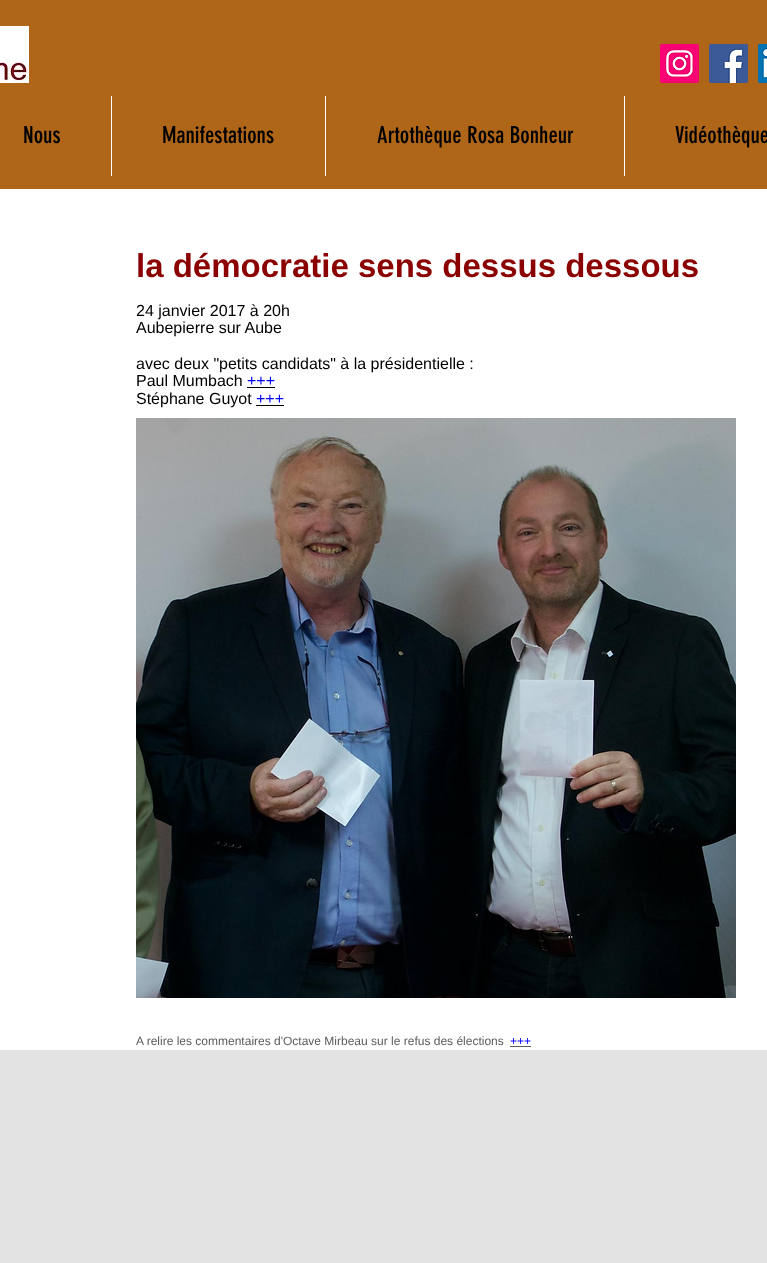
<svg xmlns="http://www.w3.org/2000/svg" width="767" height="1263" viewBox="0 0 767 1263">
  <style>
    .t1 { font: 23px 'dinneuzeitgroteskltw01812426'; fill: #000; }
    .t2 { font: bold 33px Liberation Sans; fill: #8b0000; }
    .t3 { font: 16px Liberation Sans; fill: #000; }
    .t4 { font: 16px Liberation Sans; fill: #00f; }
    .t5 { font: 12px Liberation Sans; fill: #5c5c5c; }
    .t6 { font: 12px Liberation Sans; fill: #00f; }
  </style>
  <rect width="100%" height="100%" fill="#e3e3e3"/>
  <rect x="0" y="0" width="767" height="189" fill="#af6619"/>
  <image x="0" y="26" width="29" height="57" href="images/1.png"/>
  <image x="660" y="44" width="39" height="39" href="images/2.png"/>
  <image x="709" y="44" width="39" height="39" href="images/3.png"/>
  <image x="758" y="44" width="9" height="39" href="images/4.png"/>
  <text x="23" y="143" class="t1">Nous</text>
  <rect x="111" y="96" width="1" height="80" fill="#fff"/>
  <text x="162" y="143" class="t1">Manifestations</text>
  <rect x="325" y="96" width="1" height="80" fill="#fff"/>
  <text x="377" y="143" class="t1">Artothèque Rosa Bonheur</text>
  <rect x="624" y="96" width="1" height="80" fill="#fff"/>
  <text x="675" y="143" class="t1">Vidéothèque</text>
  <rect x="0" y="189" width="767" height="861" fill="#fff"/>
  <text x="136" y="277" class="t2">la démocratie sens dessus dessous</text>
  <text x="136" y="316" class="t3">24 janvier 2017 à 20h</text>
  <text x="136" y="333" class="t3">Aubepierre sur Aube</text>
  <text x="136" y="369" class="t3">avec deux "petits candidats" à la présidentielle :</text>
  <text x="136" y="386" class="t3">Paul Mumbach</text>
  <text x="247" y="386" class="t4">+++</text>
  <rect x="247" y="387" width="28" height="1" fill="#000"/>
  <text x="136" y="404" class="t3">Stéphane Guyot</text>
  <text x="256" y="404" class="t4">+++</text>
  <rect x="256" y="405" width="28" height="1" fill="#000"/>
  <image x="136" y="418" width="600" height="580" href="images/5.png"/>
  <text x="136" y="1045" class="t5">A relire les commentaires d'Octave Mirbeau sur le refus des élections</text>
  <text x="510" y="1045" class="t6">+++</text>
  <rect x="510" y="1046" width="21" height="1" fill="#5c5c5c"/>
</svg>
